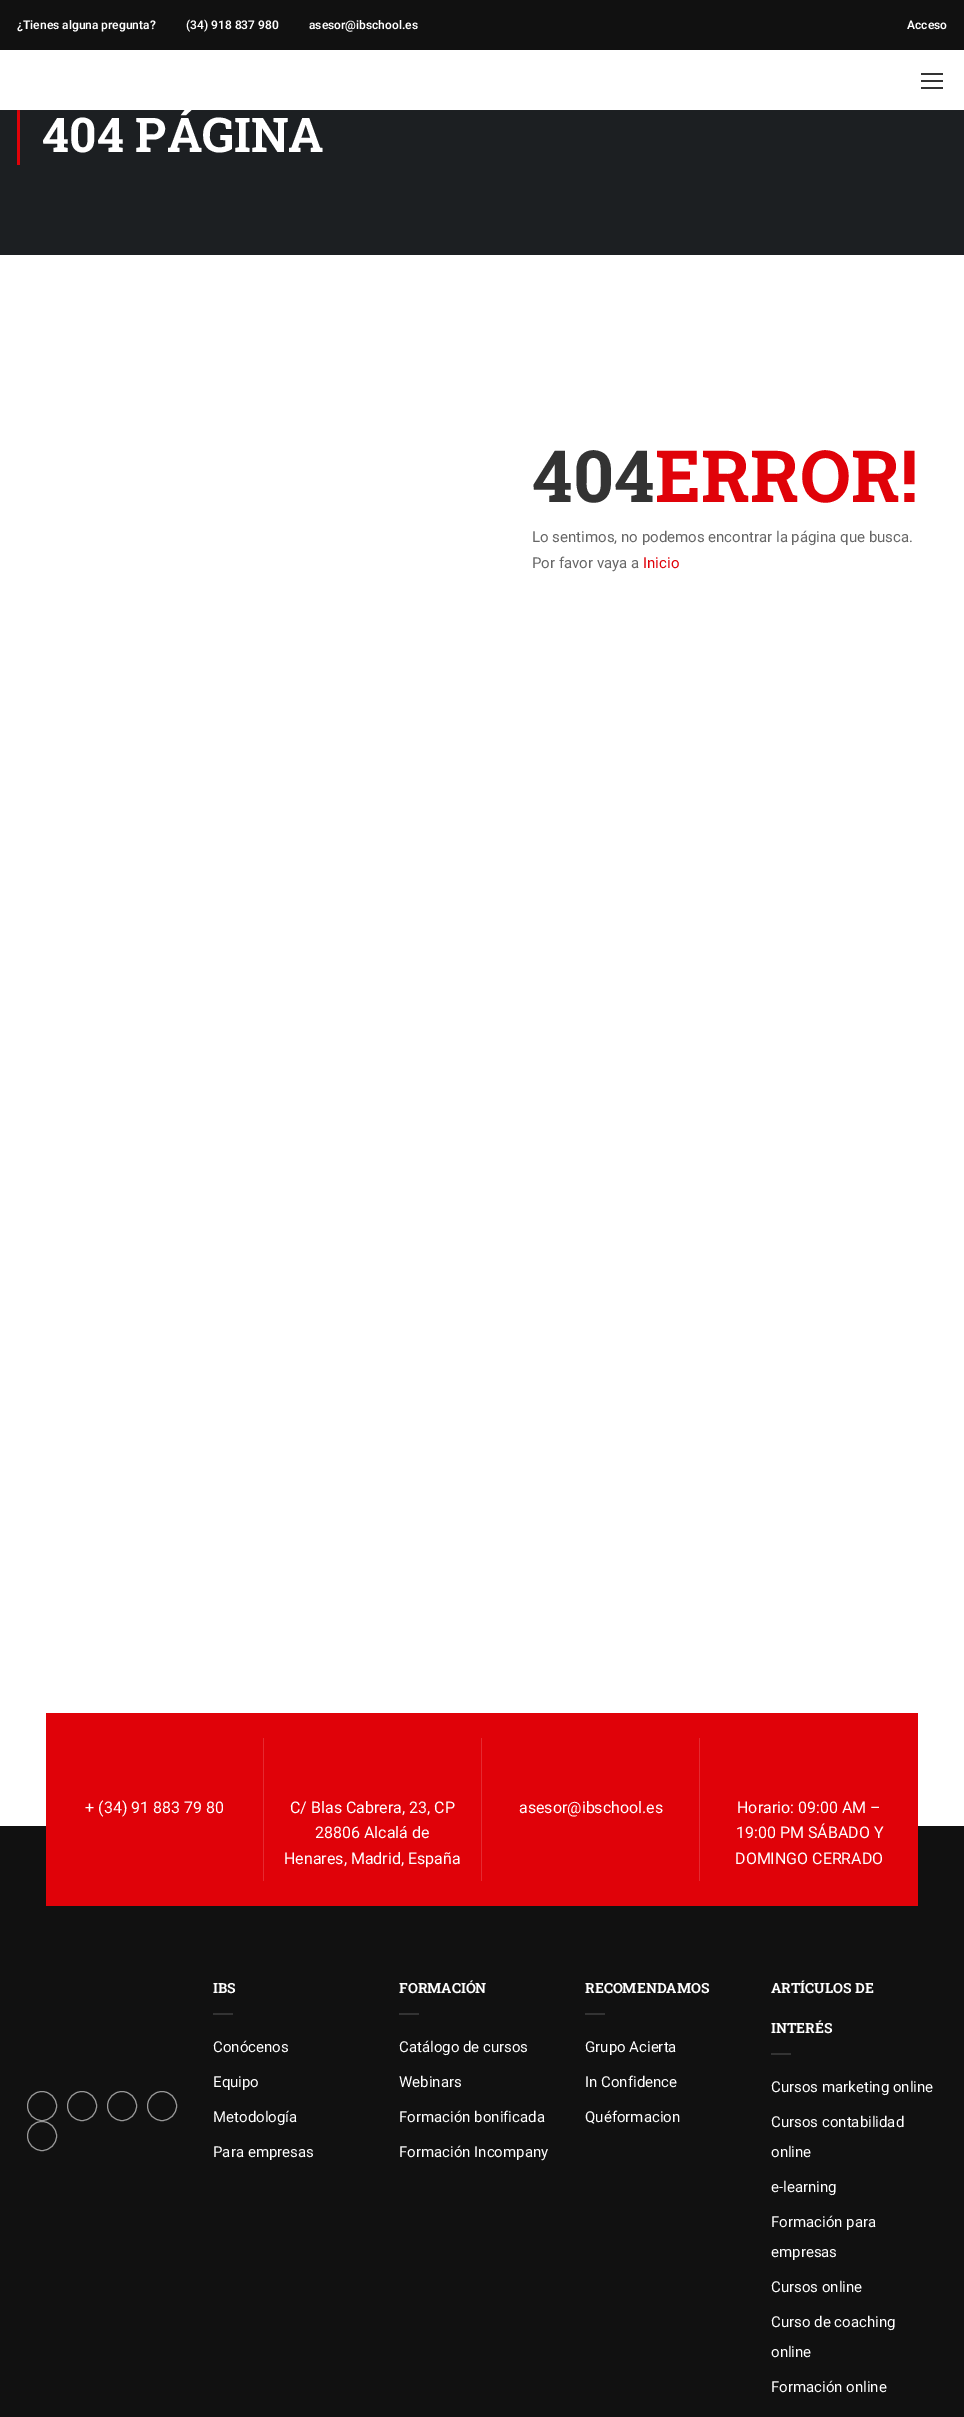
%!PS
<< /PageSize [964 2417] /PageUsesTransparency true >> setpagedevice
/st/stroke load def
/co { dup -16 bitshift 255 div exch dup -8 bitshift 255 and 255 div exch 255 and 255 div setrgbcolor } def
/fn { [ exch dup neg 0 0 3 -1 roll 0 0 ] selectfont } def
/tx { co fn moveto show } def
/bx { co rectfill } def
/al { dup .setfillconstantalpha .setstrokeconstantalpha } def
/ci { newpath 0 360 arc closepath } def
/rr { 5 dict begin { /r /h /w /y /x } { exch def } forall
  x r add y moveto x w add y 2 copy h add r arct x w add y h add x 1 index r arct
  x y h add x y r arct x y 2 copy exch w add exch r arct closepath end } def
/sh { 12 dict begin { /a /b /q /h /w /y /x } { exch def } forall gsave /was 0 def
  9 -2 -9 { dup b mul 4 div /e exch def 1 sub .425 mul 2.718 exch exp 1 add a .99 .min exch div /now exch def
    1 1 now sub 1 was sub div sub al /was now def
    w h .min e 2 mul add 0 gt { x e sub y e sub w e 2 mul add h e 2 mul add
      q e add b .6 mul add w h .min 2 div e add .min 0 .max rr fill } if } for grestore end } def
0 .pushpdf14devicefilter
0 2417 translate 1 -1 scale
4 setmiterlimit
0 0 964 2417 16#FFFFFF bx
0 110 964 145 16#1C1F22 bx
17 103 3 62 16#E00209 bx
16#2A2A2A co
2 3 960 106 0 2.5 .4 sh
0 50 964 60 16#FFFFFF bx
0 0 964 50 16#111111 bx
921 73 22 2 16#333333 bx
921 80 22 2 16#333333 bx
921 87 22 2 16#333333 bx
0 1826 964 591 16#111111 bx
46 1713 872 193 16#E00209 bx
263 1738 1 143 16#E52A30 bx
481 1738 1 143 16#E52A30 bx
699 1738 1 143 16#E52A30 bx
16#999999 co
42 2106 14.5 ci st
82 2106 14.5 ci st
122 2106 14.5 ci st
162 2106 14.5 ci st
42 2136 14.5 ci st
213 2013 20 2 16#333333 bx
399 2013 20 2 16#333333 bx
585 2013 20 2 16#333333 bx
771 2053 20 2 16#333333 bx
(¿Tienes alguna pregunta?) 17 29 /Roboto-SemiBold 12 16#FFFFFF tx
(\(34\) 918 837 980) 186 29 /Roboto-SemiBold 12 16#FFFFFF tx
(asesor@ibschool.es) 309 29 /Roboto-SemiBold 12 16#FFFFFF tx
(Acceso) 907 29 /Roboto-SemiBold 12 16#FFFFFF tx
(404 PÁGINA) 42 152 /RobotoSlab-Bold 48 16#FFFFFF tx
(404) 532 502 /RobotoSlab-Bold 72 16#333333 tx
(ERROR!) 655 502 /RobotoSlab-Bold 72 16#E00209 tx
(Lo sentimos, no podemos encontrar la página que busca.) 532 542 /Roboto-Regular 15 16#666666 tx
(Por favor vaya a) 532 568 /Roboto-Regular 15 16#666666 tx
(Inicio) 643 568 /Roboto-Regular 15 16#E00209 tx
(+ \(34\) 91 883 79 80) 85 1813 /Roboto-Regular 16 16#FFFFFF tx
(C/ Blas Cabrera, 23, CP) 290 1813 /Roboto-Regular 16 16#FFFFFF tx
(28806 Alcalá de) 315 1838 /Roboto-Regular 16 16#FFFFFF tx
(Henares, Madrid, España) 284 1864 /Roboto-Regular 16 16#FFFFFF tx
(asesor@ibschool.es) 519 1813 /Roboto-Regular 16 16#FFFFFF tx
(Horario: 09:00 AM –) 737 1813 /Roboto-Regular 16 16#FFFFFF tx
(19:00 PM SÁBADO Y) 736 1838 /Roboto-Regular 16 16#FFFFFF tx
(DOMINGO CERRADO) 735 1864 /Roboto-Regular 16 16#FFFFFF tx
(IBS) 213 1993 /RobotoSlab-Bold 14 16#FFFFFF tx
(Conócenos) 213 2052 /Roboto-Regular 15 16#FFFFFF tx
(Equipo) 213 2087 /Roboto-Regular 15 16#FFFFFF tx
(Metodología) 213 2122 /Roboto-Regular 15 16#FFFFFF tx
(Para empresas) 213 2157 /Roboto-Regular 15 16#FFFFFF tx
(FORMACIÓN) 399 1993 /RobotoSlab-Bold 14 16#FFFFFF tx
(Catálogo de cursos) 399 2052 /Roboto-Regular 15 16#FFFFFF tx
(Webinars) 399 2087 /Roboto-Regular 15 16#FFFFFF tx
(Formación bonificada) 399 2122 /Roboto-Regular 15 16#FFFFFF tx
(Formación Incompany) 399 2157 /Roboto-Regular 15 16#FFFFFF tx
(RECOMENDAMOS) 585 1993 /RobotoSlab-Bold 14 16#FFFFFF tx
(Grupo Acierta) 585 2052 /Roboto-Regular 15 16#FFFFFF tx
(In Confidence) 585 2087 /Roboto-Regular 15 16#FFFFFF tx
(Quéformacion) 585 2122 /Roboto-Regular 15 16#FFFFFF tx
(ARTÍCULOS DE) 771 1993 /RobotoSlab-Bold 14 16#FFFFFF tx
(INTERÉS) 771 2033 /RobotoSlab-Bold 14 16#FFFFFF tx
(Cursos marketing online) 771 2092 /Roboto-Regular 15 16#FFFFFF tx
(Cursos contabilidad) 771 2127 /Roboto-Regular 15 16#FFFFFF tx
(online) 771 2157 /Roboto-Regular 15 16#FFFFFF tx
(e-learning) 771 2192 /Roboto-Regular 15 16#FFFFFF tx
(Formación para) 771 2227 /Roboto-Regular 15 16#FFFFFF tx
(empresas) 771 2257 /Roboto-Regular 15 16#FFFFFF tx
(Cursos online) 771 2292 /Roboto-Regular 15 16#FFFFFF tx
(Curso de coaching) 771 2327 /Roboto-Regular 15 16#FFFFFF tx
(online) 771 2357 /Roboto-Regular 15 16#FFFFFF tx
(Formación online) 771 2392 /Roboto-Regular 15 16#FFFFFF tx
.poppdf14devicefilter showpage
